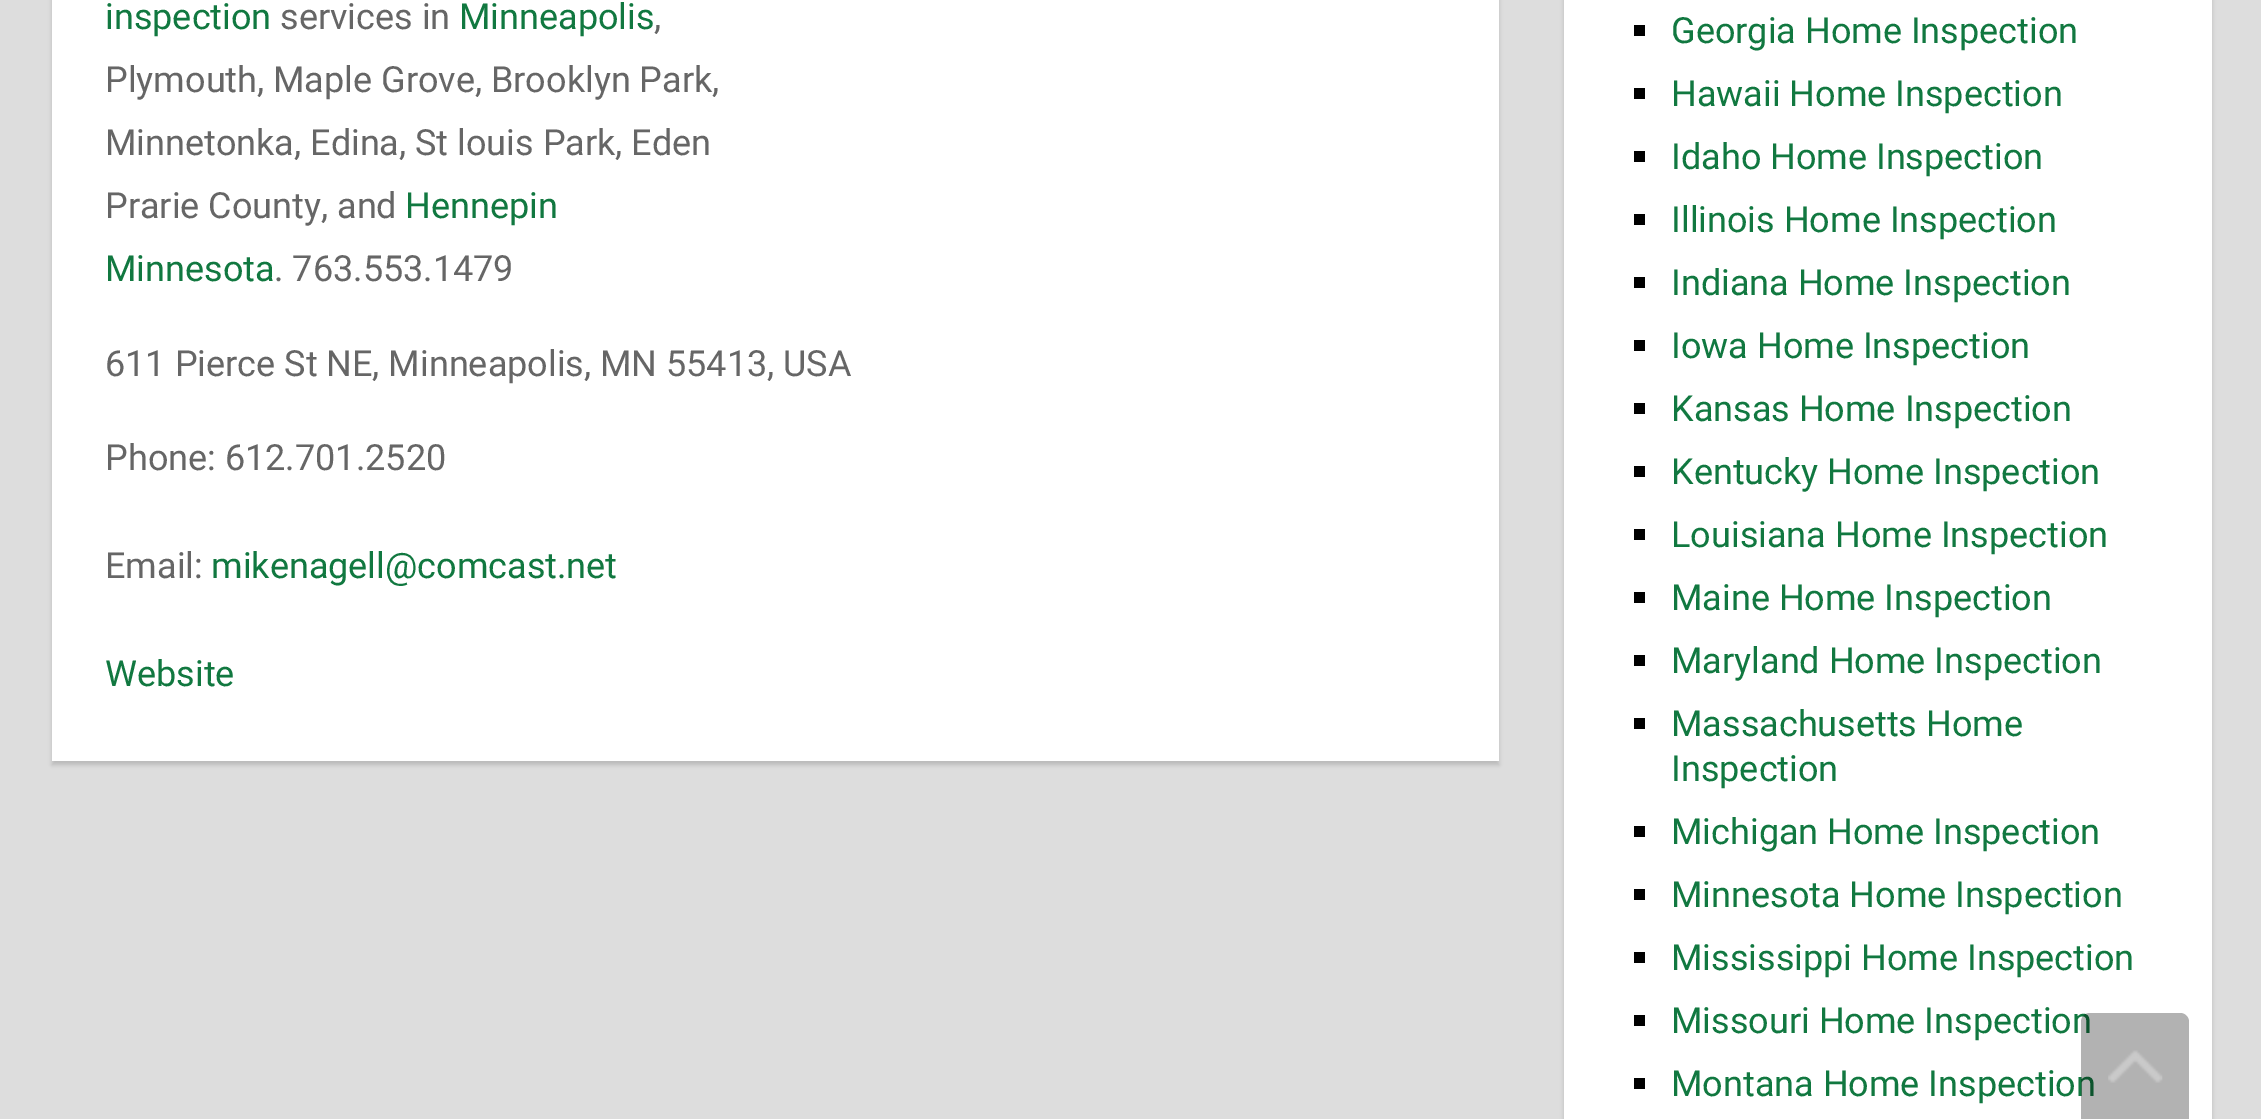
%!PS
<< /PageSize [2261 1119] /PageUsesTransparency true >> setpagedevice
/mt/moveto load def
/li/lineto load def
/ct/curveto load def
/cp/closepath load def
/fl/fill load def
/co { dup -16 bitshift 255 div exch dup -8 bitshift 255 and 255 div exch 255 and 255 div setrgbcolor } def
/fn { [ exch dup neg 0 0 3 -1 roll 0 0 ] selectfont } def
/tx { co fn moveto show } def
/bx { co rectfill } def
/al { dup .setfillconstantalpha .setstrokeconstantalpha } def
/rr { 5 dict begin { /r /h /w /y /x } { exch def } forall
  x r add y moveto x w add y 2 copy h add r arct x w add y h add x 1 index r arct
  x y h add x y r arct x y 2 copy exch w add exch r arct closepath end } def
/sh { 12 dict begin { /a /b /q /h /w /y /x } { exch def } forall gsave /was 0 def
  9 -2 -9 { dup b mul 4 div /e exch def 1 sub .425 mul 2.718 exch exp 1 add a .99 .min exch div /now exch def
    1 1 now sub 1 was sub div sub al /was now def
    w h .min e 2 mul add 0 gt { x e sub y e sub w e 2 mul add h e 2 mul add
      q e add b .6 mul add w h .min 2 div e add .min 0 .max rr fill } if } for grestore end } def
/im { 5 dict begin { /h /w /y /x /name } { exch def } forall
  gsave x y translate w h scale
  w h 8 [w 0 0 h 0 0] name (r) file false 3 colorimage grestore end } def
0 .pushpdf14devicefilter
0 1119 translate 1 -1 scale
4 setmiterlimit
0 0 2261 1119 16#DDDDDD bx
16#000000 co
52 -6 1447 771 0 2 .15 sh
52 0 1447 761 16#FFFFFF bx
16#000000 co
1564 -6 648 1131 0 2 .15 sh
1564 0 648 1119 16#FFFFFF bx
1634 25 11 11 16#000000 bx
1634 88 11 11 16#000000 bx
1634 151 11 11 16#000000 bx
1634 214 11 11 16#000000 bx
1634 277 11 11 16#000000 bx
1634 340 11 11 16#000000 bx
1634 403 11 11 16#000000 bx
1634 466 11 11 16#000000 bx
1634 529 11 11 16#000000 bx
1634 592 11 11 16#000000 bx
1634 655 11 11 16#000000 bx
1634 718 11 11 16#000000 bx
1634 826 11 11 16#000000 bx
1634 889 11 11 16#000000 bx
1634 952 11 11 16#000000 bx
1634 1015 11 11 16#000000 bx
1634 1078 11 11 16#000000 bx
(inspection) 105 29 /Roboto-Regular 36 16#117840 tx
(services in) 280 29 /Roboto-Regular 36 16#666666 tx
(Minneapolis) 459 29 /Roboto-Regular 36 16#117840 tx
(,) 654 29 /Roboto-Regular 36 16#666666 tx
(Plymouth, Maple Grove, Brooklyn Park,) 105 92 /Roboto-Regular 36 16#666666 tx
(Minnetonka, Edina, St louis Park, Eden) 105 155 /Roboto-Regular 36 16#666666 tx
(Prarie County, and) 105 218 /Roboto-Regular 36 16#666666 tx
(Hennepin) 405 218 /Roboto-Regular 36 16#117840 tx
(Minnesota) 105 281 /Roboto-Regular 36 16#117840 tx
(. 763.553.1479) 274 281 /Roboto-Regular 36 16#666666 tx
(611 Pierce St NE, Minneapolis, MN 55413, USA) 105 376 /Roboto-Regular 36 16#666666 tx
(Phone: 612.701.2520) 105 470 /Roboto-Regular 36 16#666666 tx
(Email:) 105 578 /Roboto-Regular 36 16#666666 tx
(mikenagell@comcast.net) 211 578 /Roboto-Regular 36 16#117840 tx
(Website) 105 686 /Roboto-Regular 36 16#117840 tx
(Georgia Home Inspection) 1671 43 /Roboto-Regular 36 16#117840 tx
(Hawaii Home Inspection) 1671 106 /Roboto-Regular 36 16#117840 tx
(Idaho Home Inspection) 1671 169 /Roboto-Regular 36 16#117840 tx
(Illinois Home Inspection) 1671 232 /Roboto-Regular 36 16#117840 tx
(Indiana Home Inspection) 1671 295 /Roboto-Regular 36 16#117840 tx
(Iowa Home Inspection) 1671 358 /Roboto-Regular 36 16#117840 tx
(Kansas Home Inspection) 1671 421 /Roboto-Regular 36 16#117840 tx
(Kentucky Home Inspection) 1671 484 /Roboto-Regular 36 16#117840 tx
(Louisiana Home Inspection) 1671 547 /Roboto-Regular 36 16#117840 tx
(Maine Home Inspection) 1671 610 /Roboto-Regular 36 16#117840 tx
(Maryland Home Inspection) 1671 673 /Roboto-Regular 36 16#117840 tx
(Massachusetts Home) 1671 736 /Roboto-Regular 36 16#117840 tx
(Inspection) 1671 781 /Roboto-Regular 36 16#117840 tx
(Michigan Home Inspection) 1671 844 /Roboto-Regular 36 16#117840 tx
(Minnesota Home Inspection) 1671 907 /Roboto-Regular 36 16#117840 tx
(Mississippi Home Inspection) 1671 970 /Roboto-Regular 36 16#117840 tx
(Missouri Home Inspection) 1671 1033 /Roboto-Regular 36 16#117840 tx
(Montana Home Inspection) 1671 1096 /Roboto-Regular 36 16#117840 tx
0.3 al
16#000000 co
2090 1013 mt 2180 1013 li 2185 1013 2189 1017 2189 1022 ct 2189 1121 li 2081 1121 li 2081 1022 li 2081 1017 2085 1013 2090 1013 ct cp fl
1 al
(media/1.raw) 2108 1050 55 33 im
.poppdf14devicefilter showpage
